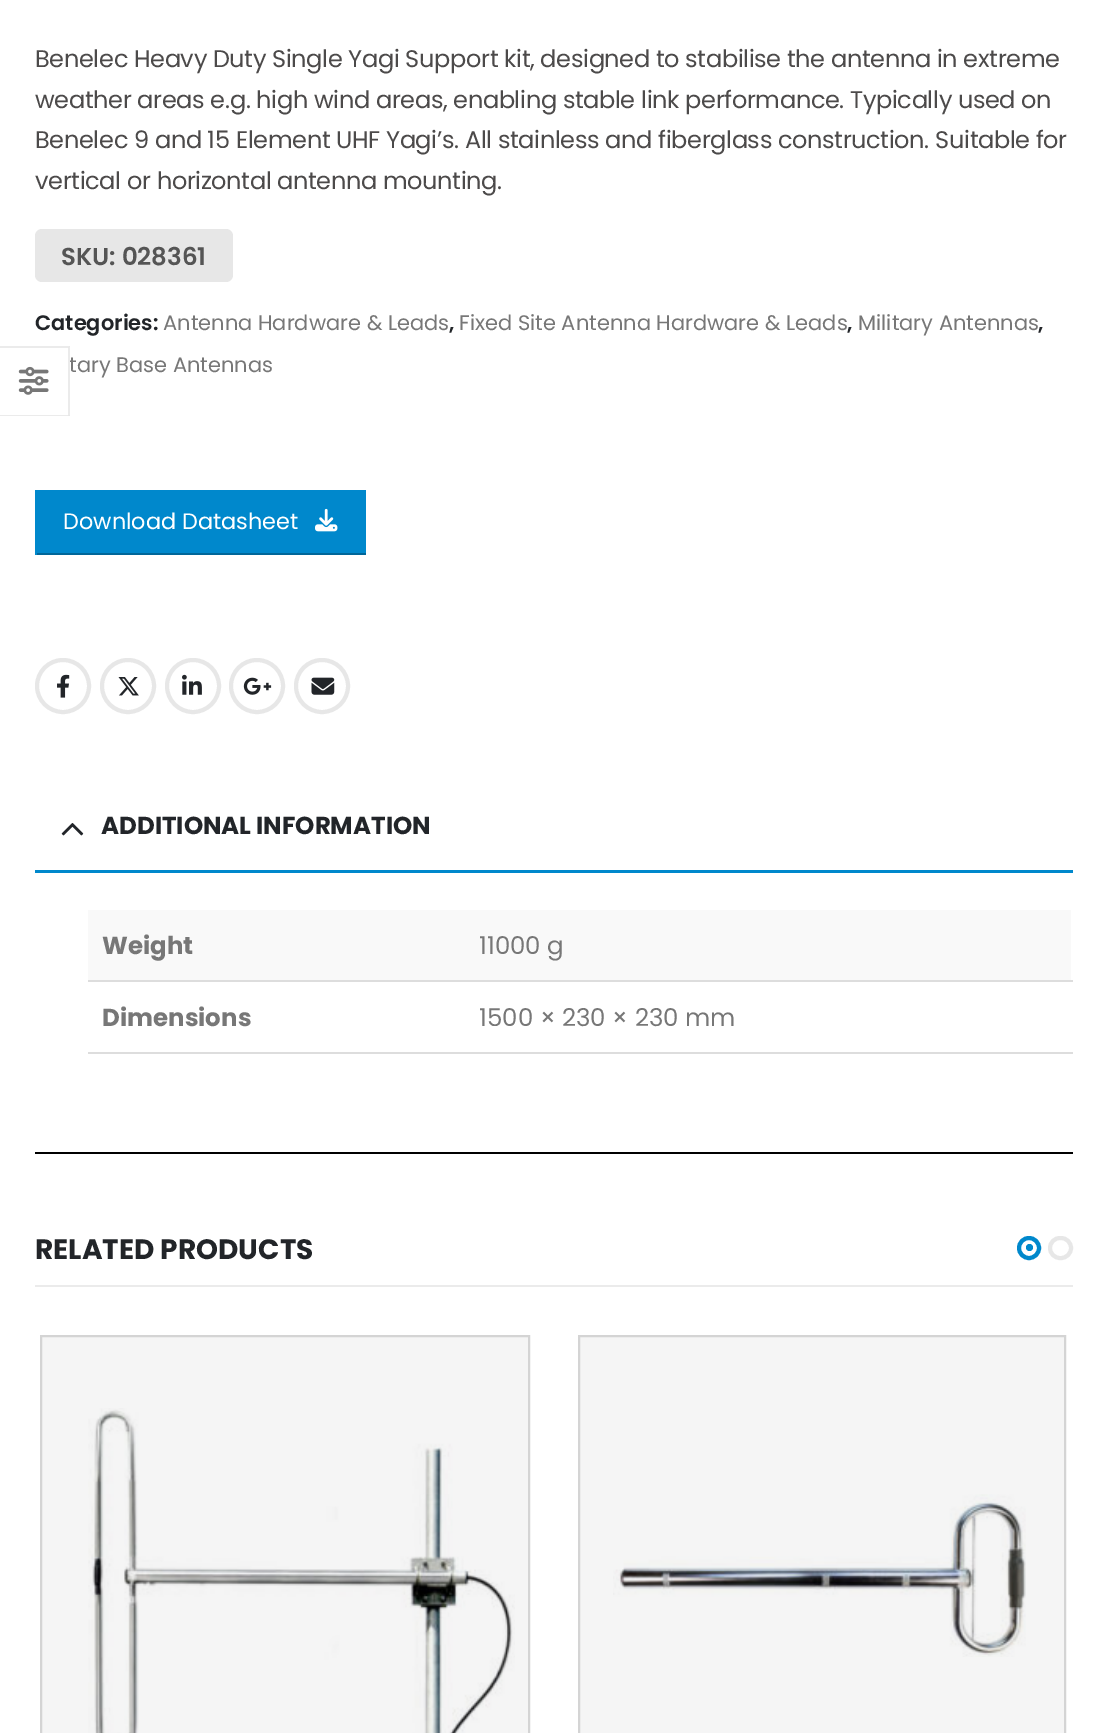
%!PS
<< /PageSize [1107 1733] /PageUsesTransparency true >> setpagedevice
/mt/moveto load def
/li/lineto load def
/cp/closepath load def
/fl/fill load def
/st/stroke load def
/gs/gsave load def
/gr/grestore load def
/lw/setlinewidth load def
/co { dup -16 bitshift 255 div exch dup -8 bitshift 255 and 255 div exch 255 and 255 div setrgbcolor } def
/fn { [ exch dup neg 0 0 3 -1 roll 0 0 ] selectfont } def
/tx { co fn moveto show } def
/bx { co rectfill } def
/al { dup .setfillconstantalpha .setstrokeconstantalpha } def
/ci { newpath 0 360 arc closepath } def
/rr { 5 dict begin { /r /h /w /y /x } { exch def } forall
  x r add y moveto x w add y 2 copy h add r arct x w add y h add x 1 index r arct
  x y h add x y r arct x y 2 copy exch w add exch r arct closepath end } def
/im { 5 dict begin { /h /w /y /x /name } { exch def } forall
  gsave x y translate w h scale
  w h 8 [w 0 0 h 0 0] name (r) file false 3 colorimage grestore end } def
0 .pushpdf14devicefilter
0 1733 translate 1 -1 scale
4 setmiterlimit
0 0 1107 1733 16#FFFFFF bx
16#E7E7E7 co
35 229 198 53 7 rr fl
37 490 329 63 16#0088CC bx
35 553 331 2 16#006699 bx
35 490 2 65 16#0088CC bx
(media/1.raw) 315 508 23 24 im
16#E7E7E7 co
4 lw
63 686 26 ci st
(media/2.raw) 57 674 13 24 im
128 686 26 ci st
(media/3.raw) 118 677 21 19 im
193 686 26 ci st
(media/4.raw) 182 674 20 21 im
257 686 26 ci st
(media/5.raw) 243 677 29 18 im
322 686 26 ci st
(media/6.raw) 311 677 24 18 im
35 870 1038 3 16#0088CC bx
(media/7.raw) 61 823 23 13 im
88 910 983 70 16#F9F9F9 bx
88 980 985 2 16#DDDDDD bx
88 1052 985 2 16#DDDDDD bx
35 1152 1038 2 16#000000 bx
16#0088CC co
1029 1248 10 ci st
1029.5 1247.5 3.5 ci fl
16#E7E7E7 co
1050 1238 21 20 10 rr st
16#F5F5F5 co
41 1336 mt 529 1336 li 529 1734 li 41 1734 li cp gs fl gr
16#D4D4D4 co
2 lw
st
(media/8.raw) 88 1408 427 325 im
16#F5F5F5 co
579 1336 mt 1065 1336 li 1065 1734 li 579 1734 li cp gs fl gr
16#D4D4D4 co
st
(media/9.raw) 613 1494 413 163 im
35 1285 1038 2 16#EBEBEB bx
0 346 mt 70 346 li 68 348 li 0 348 li cp fl
(media/10.raw) 18 366 31 29 im
/Poppins-Regular 24 fn
16#4C4A4A co
35 67 mt -.35 0 (Benelec Heavy Duty Single Yagi Support kit, designed to stabilise the antenna in extreme) ashow
35 108 mt -.35 0 (weather areas e.g. high wind areas, enabling stable link performance. Typically used on) ashow
35 148 mt -.35 0 (Benelec 9 and 15 Element UHF Yagi’s. All stainless and fiberglass construction. Suitable for) ashow
35 189 mt -.35 0 (vertical or horizontal antenna mounting.) ashow
(SKU: 028361) 61 265 /Poppins-SemiBold 24.5 16#555555 tx
(Categories:) 35 330 /Poppins-SemiBold 21 16#222529 tx
(Antenna Hardware & Leads) 163 330 /Poppins-Regular 21 16#777777 tx
(,) 449 330 /Poppins-SemiBold 21 16#222529 tx
(Fixed Site Antenna Hardware & Leads) 459 330 /Poppins-Regular 21 16#777777 tx
(,) 847 330 /Poppins-SemiBold 21 16#222529 tx
(Military Antennas) 858 330 /Poppins-Regular 21 16#777777 tx
(,) 1038 330 /Poppins-SemiBold 21 16#222529 tx
(tary Base Antennas) 69 372 /Poppins-Regular 21 16#777777 tx
(Download Datasheet) 63 529 /Poppins-Regular 22.4 16#FFFFFF tx
(ADDITIONAL INFORMATION) 101 834 /Poppins-Bold 24.5 16#222529 tx
(Weight) 102 954 /Poppins-Bold 24.5 16#777777 tx
(11000 g) 479 954 /Poppins-Regular 24.5 16#777777 tx
(Dimensions) 102 1026 /Poppins-Bold 24.5 16#777777 tx
(1500 × 230 × 230 mm) 479 1026 /Poppins-Regular 24.5 16#777777 tx
(RELATED PRODUCTS) 35 1259 /Poppins-Bold 28 16#222529 tx
69 360 1 3 16#FFFFFF bx
0.08 al
16#000000 co
70 346 mt 70 416 li 68 415 li 68 348 li cp fl
70 416 mt 0 416 li 0 415 li 68 415 li cp fl
.poppdf14devicefilter showpage
